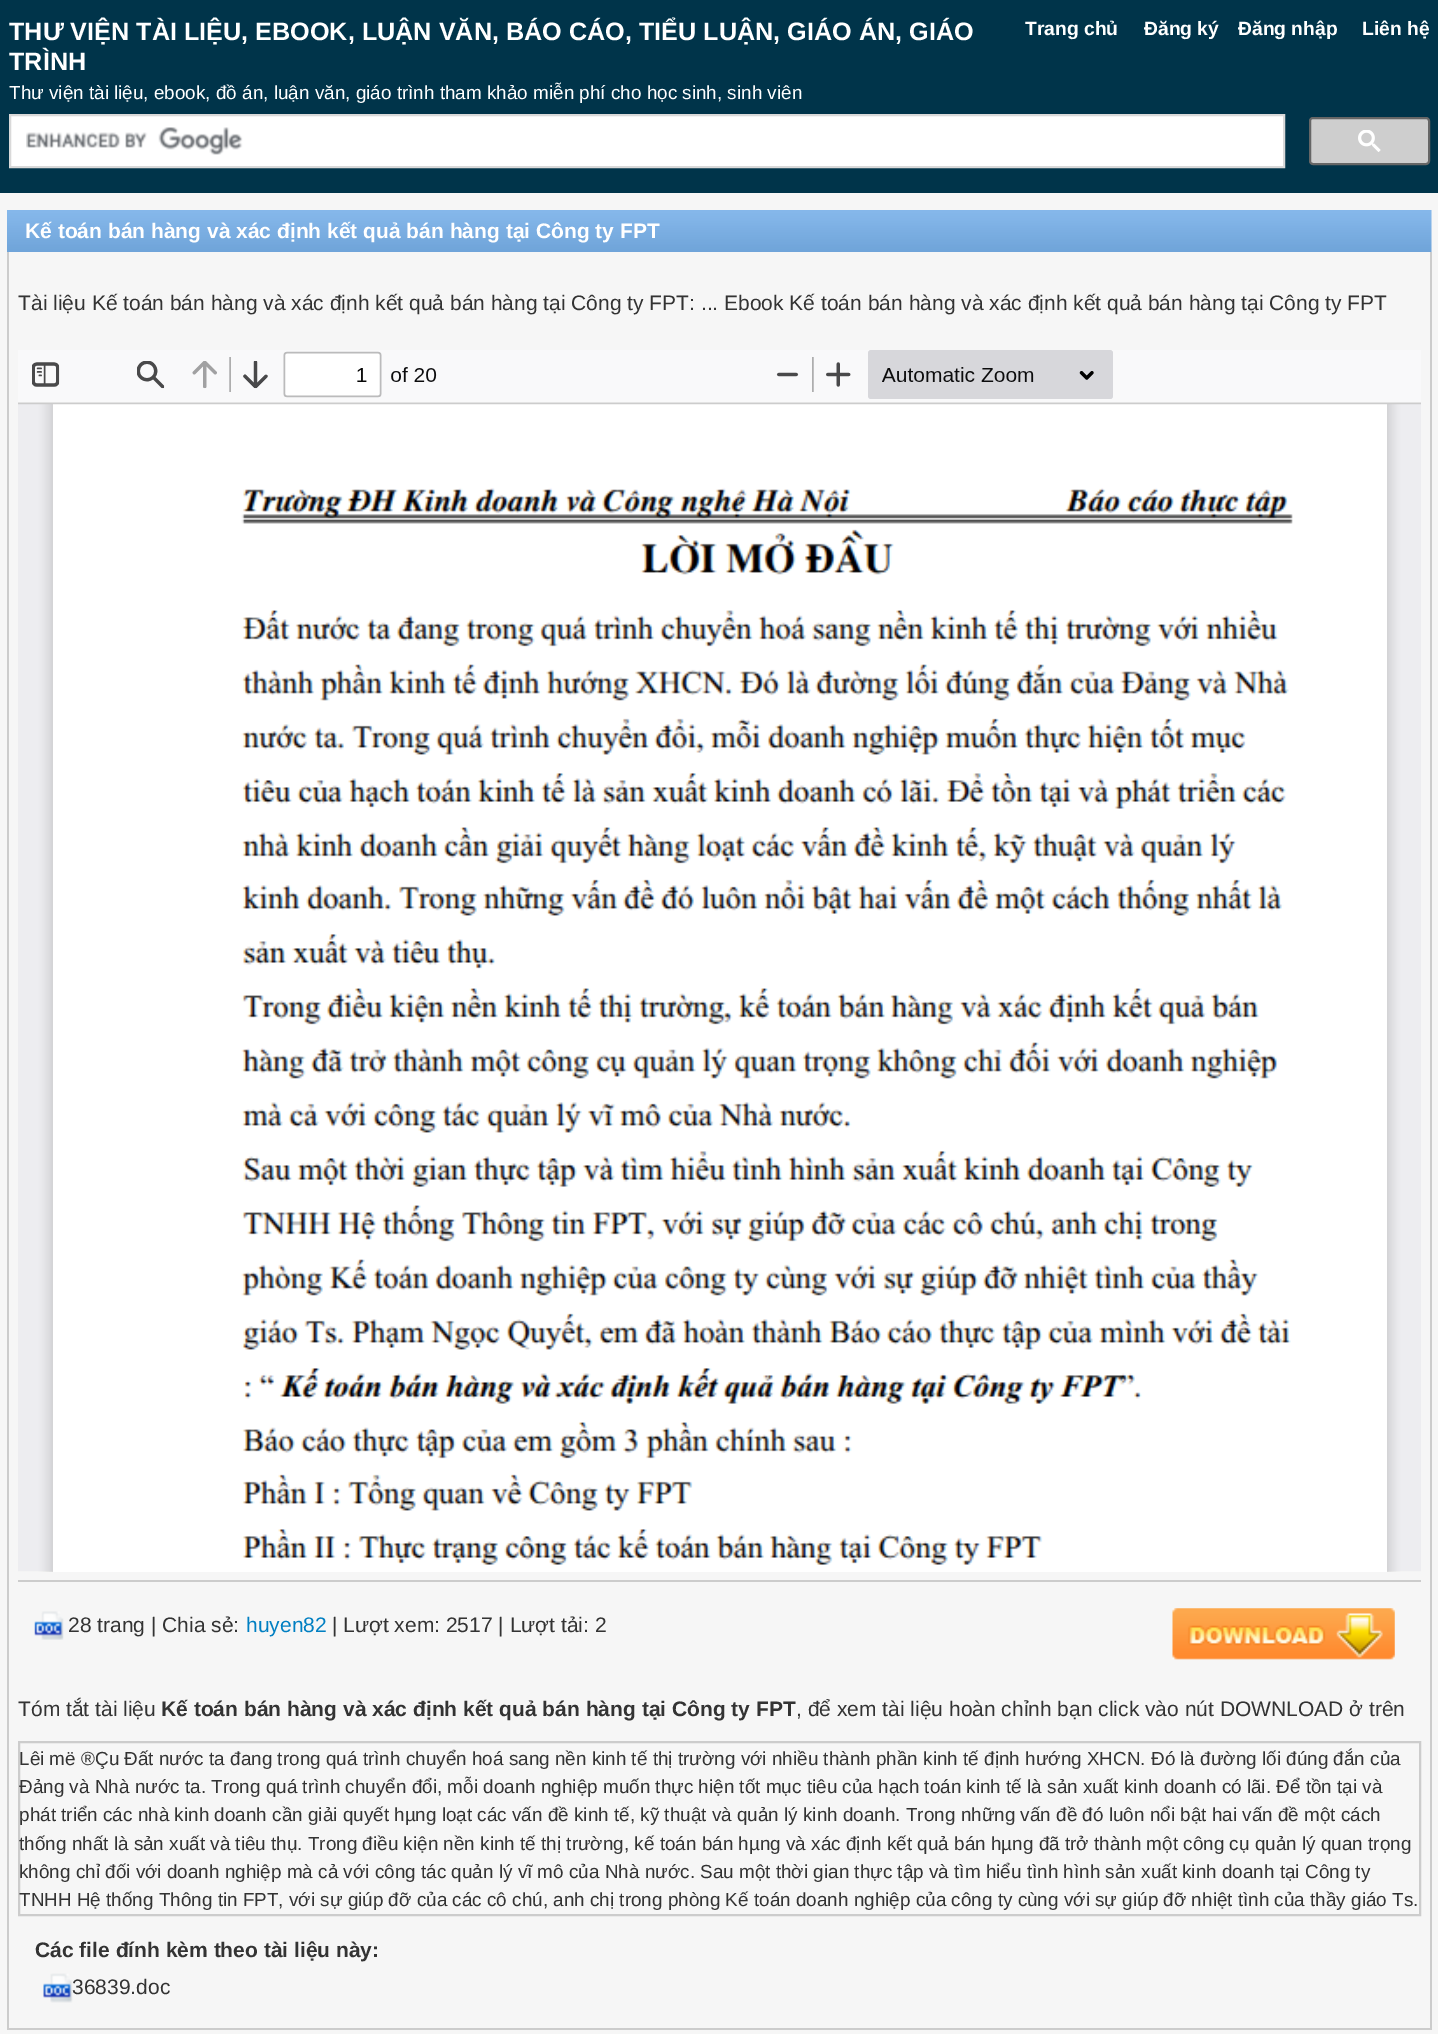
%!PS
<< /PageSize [1438 2034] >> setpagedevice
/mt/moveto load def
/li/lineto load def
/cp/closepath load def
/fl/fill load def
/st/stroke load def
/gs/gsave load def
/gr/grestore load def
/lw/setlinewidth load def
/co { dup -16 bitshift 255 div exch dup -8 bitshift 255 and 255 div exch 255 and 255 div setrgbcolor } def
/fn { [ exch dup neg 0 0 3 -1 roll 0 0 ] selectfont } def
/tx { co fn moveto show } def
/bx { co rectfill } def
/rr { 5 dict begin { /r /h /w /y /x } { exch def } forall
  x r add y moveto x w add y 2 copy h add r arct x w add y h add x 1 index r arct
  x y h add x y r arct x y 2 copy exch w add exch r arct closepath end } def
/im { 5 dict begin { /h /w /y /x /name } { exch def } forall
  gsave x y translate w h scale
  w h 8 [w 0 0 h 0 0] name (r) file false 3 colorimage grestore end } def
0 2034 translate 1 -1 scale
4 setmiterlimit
0 0 1438 2034 16#F6F6F6 bx
0 0 1438 193 16#00344A bx
16#FFFFFF co
10 115 mt 1284 115 li 1284 167 li 10 167 li cp gs fl gr
16#D9D9D9 co
2 lw
st
(media/1.raw) 26 127 217 28 im
16#CECECE co
1310 118 119 46 3 rr gs fl gr
16#666666 co
st
(media/2.raw) 1358 130 23 22 im
(media/3.raw) 7 210 1425 42 im
1430 252 2 1778 16#CCCCCC bx
7 2028 1425 2 16#CCCCCC bx
7 252 2 1778 16#CCCCCC bx
18 1580 1403 2 16#CCCCCC bx
(media/4.raw) 18 350 1403 1222 im
(media/5.raw) 34 1611 30 29 im
(media/6.raw) 1172 1608 223 52 im
19 1742 1401 173 rectstroke
(media/7.raw) 43 1973 30 30 im
(THƯ VIỆN TÀI LIỆU, EBOOK, LUẬN VĂN, BÁO CÁO, TIỂU LUẬN, GIÁO ÁN, GIÁO) 9 40 /LiberationSans-Bold 25.2 16#FFFFFF tx
(TRÌNH) 9 70 /LiberationSans-Bold 25.2 16#FFFFFF tx
(Thư viện tài liệu, ebook, đồ án, luận văn, giáo trình tham khảo miễn phí cho học sinh, sinh viên) 9 99 /LiberationSans-Regular 18.9 16#FFFFFF tx
(Trang chủ) 1025 35 /LiberationSans-Bold 19.25 16#FFFFFF tx
(Đăng ký) 1144 35 /LiberationSans-Bold 19.25 16#FFFFFF tx
(Đăng nhập) 1238 35 /LiberationSans-Bold 19.25 16#FFFFFF tx
(Liên hệ) 1362 35 /LiberationSans-Bold 19.25 16#FFFFFF tx
(Kế toán bán hàng và xác định kết quả bán hàng tại Công ty FPT) 25 238 /LiberationSans-Bold 21 16#FFFFFF tx
(Tài liệu Kế toán bán hàng và xác định kết quả bán hàng tại Công ty FPT: ... Ebook Kế toán bán hàng và xác định kết quả bán hàng tại Công ty FPT) 18 310 /LiberationSans-Regular 21 16#333333 tx
(28 trang | Chia sẻ:) 68 1632 /LiberationSans-Regular 21 16#333333 tx
(huyen82) 246 1632 /LiberationSans-Regular 21 16#007FC2 tx
(| Lượt xem: 2517 | Lượt tải: 2) 332 1632 /LiberationSans-Regular 21 16#333333 tx
(Tóm tắt tài liệu) 18 1716 /LiberationSans-Regular 21 16#333333 tx
(Kế toán bán hàng và xác định kết quả bán hàng tại Công ty FPT) 161 1716 /LiberationSans-Bold 21 16#333333 tx
(, để xem tài liệu hoàn chỉnh bạn click vào nút DOWNLOAD ở trên) 796 1716 /LiberationSans-Regular 21 16#333333 tx
(Lêi më ®Çu Đất nước ta đang trong quá trình chuyển hoá sang nền kinh tế thị trường với nhiều thành phần kinh tế định hướng XHCN. Đó là đường lối đúng đắn của) 19 1765 /LiberationSans-Regular 18.9 16#333333 tx
(Đảng và Nhà nước ta. Trong quá trình chuyển đổi, mỗi doanh nghiệp muốn thực hiện tốt mục tiêu của hạch toán kinh tế là sản xuất kinh doanh có lãi. Để tồn tại và) 19 1793 /LiberationSans-Regular 18.9 16#333333 tx
(phát triển các nhà kinh doanh cần giải quyết hµng loạt các vấn đề kinh tế, kỹ thuật và quản lý kinh doanh. Trong những vấn đề đó luôn nổi bật hai vấn đề một cách) 19 1821 /LiberationSans-Regular 18.9 16#333333 tx
(thống nhất là sản xuất và tiêu thụ. Trong điều kiện nền kinh tế thị trường, kế toán bán hµng và xác định kết quả bán hµng đã trở thành một công cụ quản lý quan trọng) 19 1850 /LiberationSans-Regular 18.9 16#333333 tx
(không chỉ đối với doanh nghiệp mà cả với công tác quản lý vĩ mô của Nhà nước. Sau một thời gian thực tập và tìm hiểu tình hình sản xuất kinh doanh tại Công ty) 19 1878 /LiberationSans-Regular 18.9 16#333333 tx
(TNHH Hệ thống Thông tin FPT, với sự giúp đỡ của các cô chú, anh chị trong phòng Kế toán doanh nghiệp của công ty cùng với sự giúp đỡ nhiệt tình của thầy giáo Ts.) 19 1906 /LiberationSans-Regular 18.9 16#333333 tx
(Các file đính kèm theo tài liệu này:) 35 1957 /LiberationSans-Bold 21 16#333333 tx
(36839.doc) 72 1994 /LiberationSans-Regular 21 16#333333 tx
showpage
